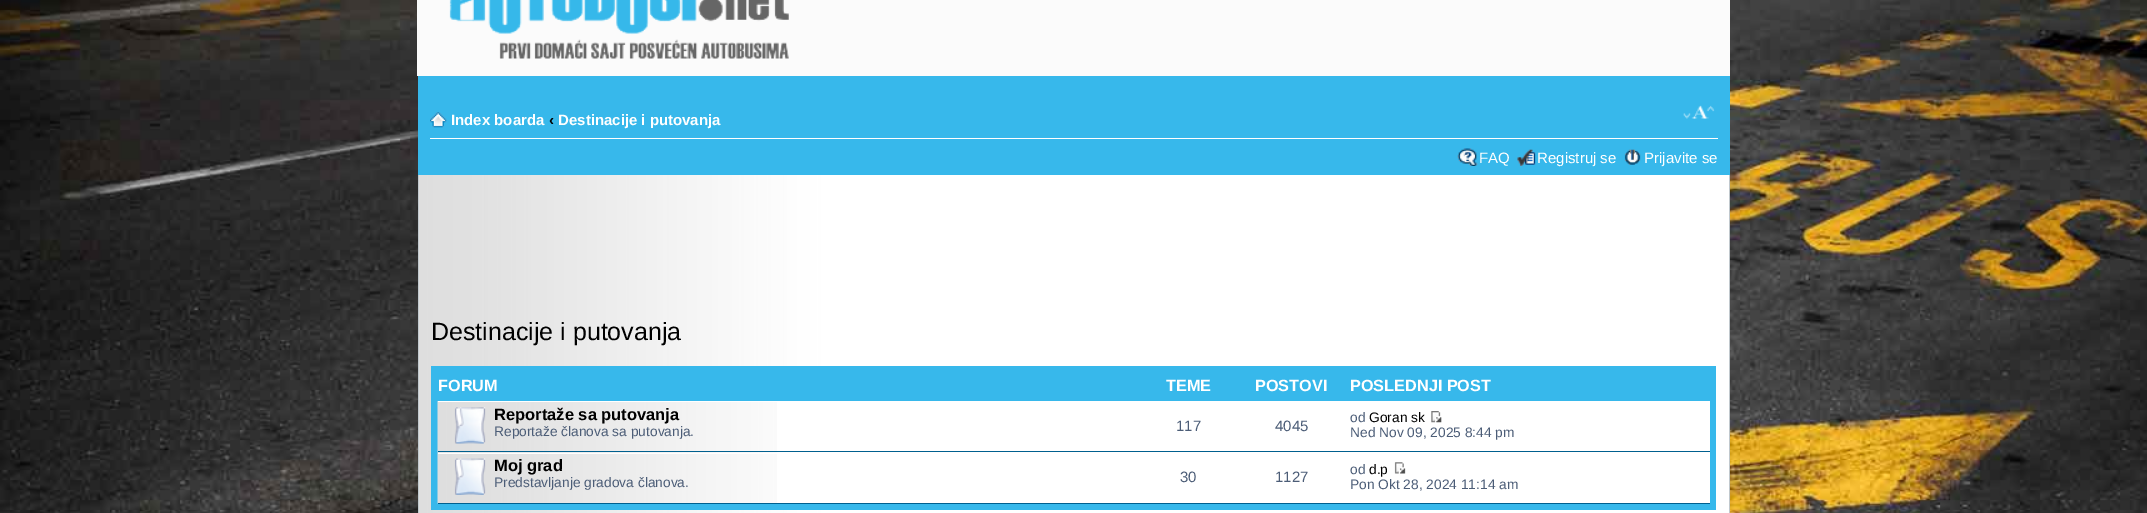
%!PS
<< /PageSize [2147 513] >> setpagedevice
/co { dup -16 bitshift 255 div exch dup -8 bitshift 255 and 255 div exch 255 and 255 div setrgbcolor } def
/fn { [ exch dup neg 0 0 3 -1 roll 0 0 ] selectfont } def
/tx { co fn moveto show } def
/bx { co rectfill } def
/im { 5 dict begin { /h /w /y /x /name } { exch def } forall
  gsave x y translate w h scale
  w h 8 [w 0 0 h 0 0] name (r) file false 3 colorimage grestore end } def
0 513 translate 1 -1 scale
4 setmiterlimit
0 0 2147 513 16#FFFFFF bx
(media/1.raw) 0 0 2147 513 im
418 76 1312 99 16#37B8EB bx
417 0 1313 76 16#FBFBFB bx
(media/2.raw) 449 0 340 59 im
430 138 1288 1 16#FFFFFF bx
(media/3.raw) 1683 105 32 14 im
(media/4.raw) 430 112 17 16 im
(media/5.raw) 1457 148 21 18 im
(media/6.raw) 1517 149 19 17 im
(media/7.raw) 1624 149 17 16 im
1618 175 111 338 16#FFFFFF bx
(media/8.raw) 419 175 1199 338 im
1729 175 1 338 16#C0C8CD bx
418 175 1 338 16#C0C8CD bx
431 366 1285 144 16#37B8EB bx
438 402 1272 51 16#FFFFFF bx
(media/9.raw) 437 401 340 52 im
438 401 1272 1 16#FFFFFF bx
438 451 1272 1 16#00608F bx
(media/10.raw) 454 407 32 37 im
(media/11.raw) 1431 411 11 12 im
777 454 933 49 16#FFFFFF bx
(media/12.raw) 437 452 340 52 im
438 453 1272 1 16#FFFFFF bx
438 503 1272 1 16#00608F bx
(media/13.raw) 454 458 32 37 im
(media/14.raw) 1394 462 12 12 im
(Index boarda) 451 125 /LiberationSans-Bold 15 16#FFFFFF tx
(‹) 549 125 /LiberationSans-Bold 15 16#000000 tx
(Destinacije i putovanja) 558 125 /LiberationSans-Bold 15 16#FFFFFF tx
(FAQ) 1479 163 /LiberationSans-Regular 15 16#FFFFFF tx
(Registruj se) 1537 163 /LiberationSans-Regular 15 16#FFFFFF tx
(Prijavite se) 1644 163 /LiberationSans-Regular 15 16#FFFFFF tx
(Destinacije i putovanja) 431 340 /LiberationSans-Regular 25 16#000000 tx
(FORUM) 438 391 /LiberationSans-Bold 16.25 16#FFFFFF tx
(TEME) 1166 391 /LiberationSans-Bold 16.25 16#FFFFFF tx
(POSTOVI) 1255 391 /LiberationSans-Bold 16.25 16#FFFFFF tx
(POSLEDNJI POST) 1350 391 /LiberationSans-Bold 16.25 16#FFFFFF tx
(Reportaže sa putovanja) 494 420 /LiberationSans-Bold 16.5 16#000000 tx
(Reportaže članova sa putovanja.) 494 436 /LiberationSans-Regular 13.75 16#4C5D77 tx
(117) 1176 431 /LiberationSans-Regular 15 16#4C5D77 tx
(4045) 1275 431 /LiberationSans-Regular 15 16#4C5D77 tx
(od) 1350 422 /LiberationSans-Regular 13.75 16#4C5D77 tx
(Goran sk) 1369 422 /LiberationSans-Regular 13.75 16#000000 tx
(Ned Nov 09, 2025 8:44 pm) 1350 437 /LiberationSans-Regular 13.75 16#4C5D77 tx
(Moj grad) 494 471 /LiberationSans-Bold 16.5 16#000000 tx
(Predstavljanje gradova članova.) 494 487 /LiberationSans-Regular 13.75 16#4C5D77 tx
(30) 1180 482 /LiberationSans-Regular 15 16#4C5D77 tx
(1127) 1275 482 /LiberationSans-Regular 15 16#4C5D77 tx
(od) 1350 474 /LiberationSans-Regular 13.75 16#4C5D77 tx
(d.p) 1369 474 /LiberationSans-Regular 13.75 16#000000 tx
(Pon Okt 28, 2024 11:14 am) 1350 489 /LiberationSans-Regular 13.75 16#4C5D77 tx
showpage
